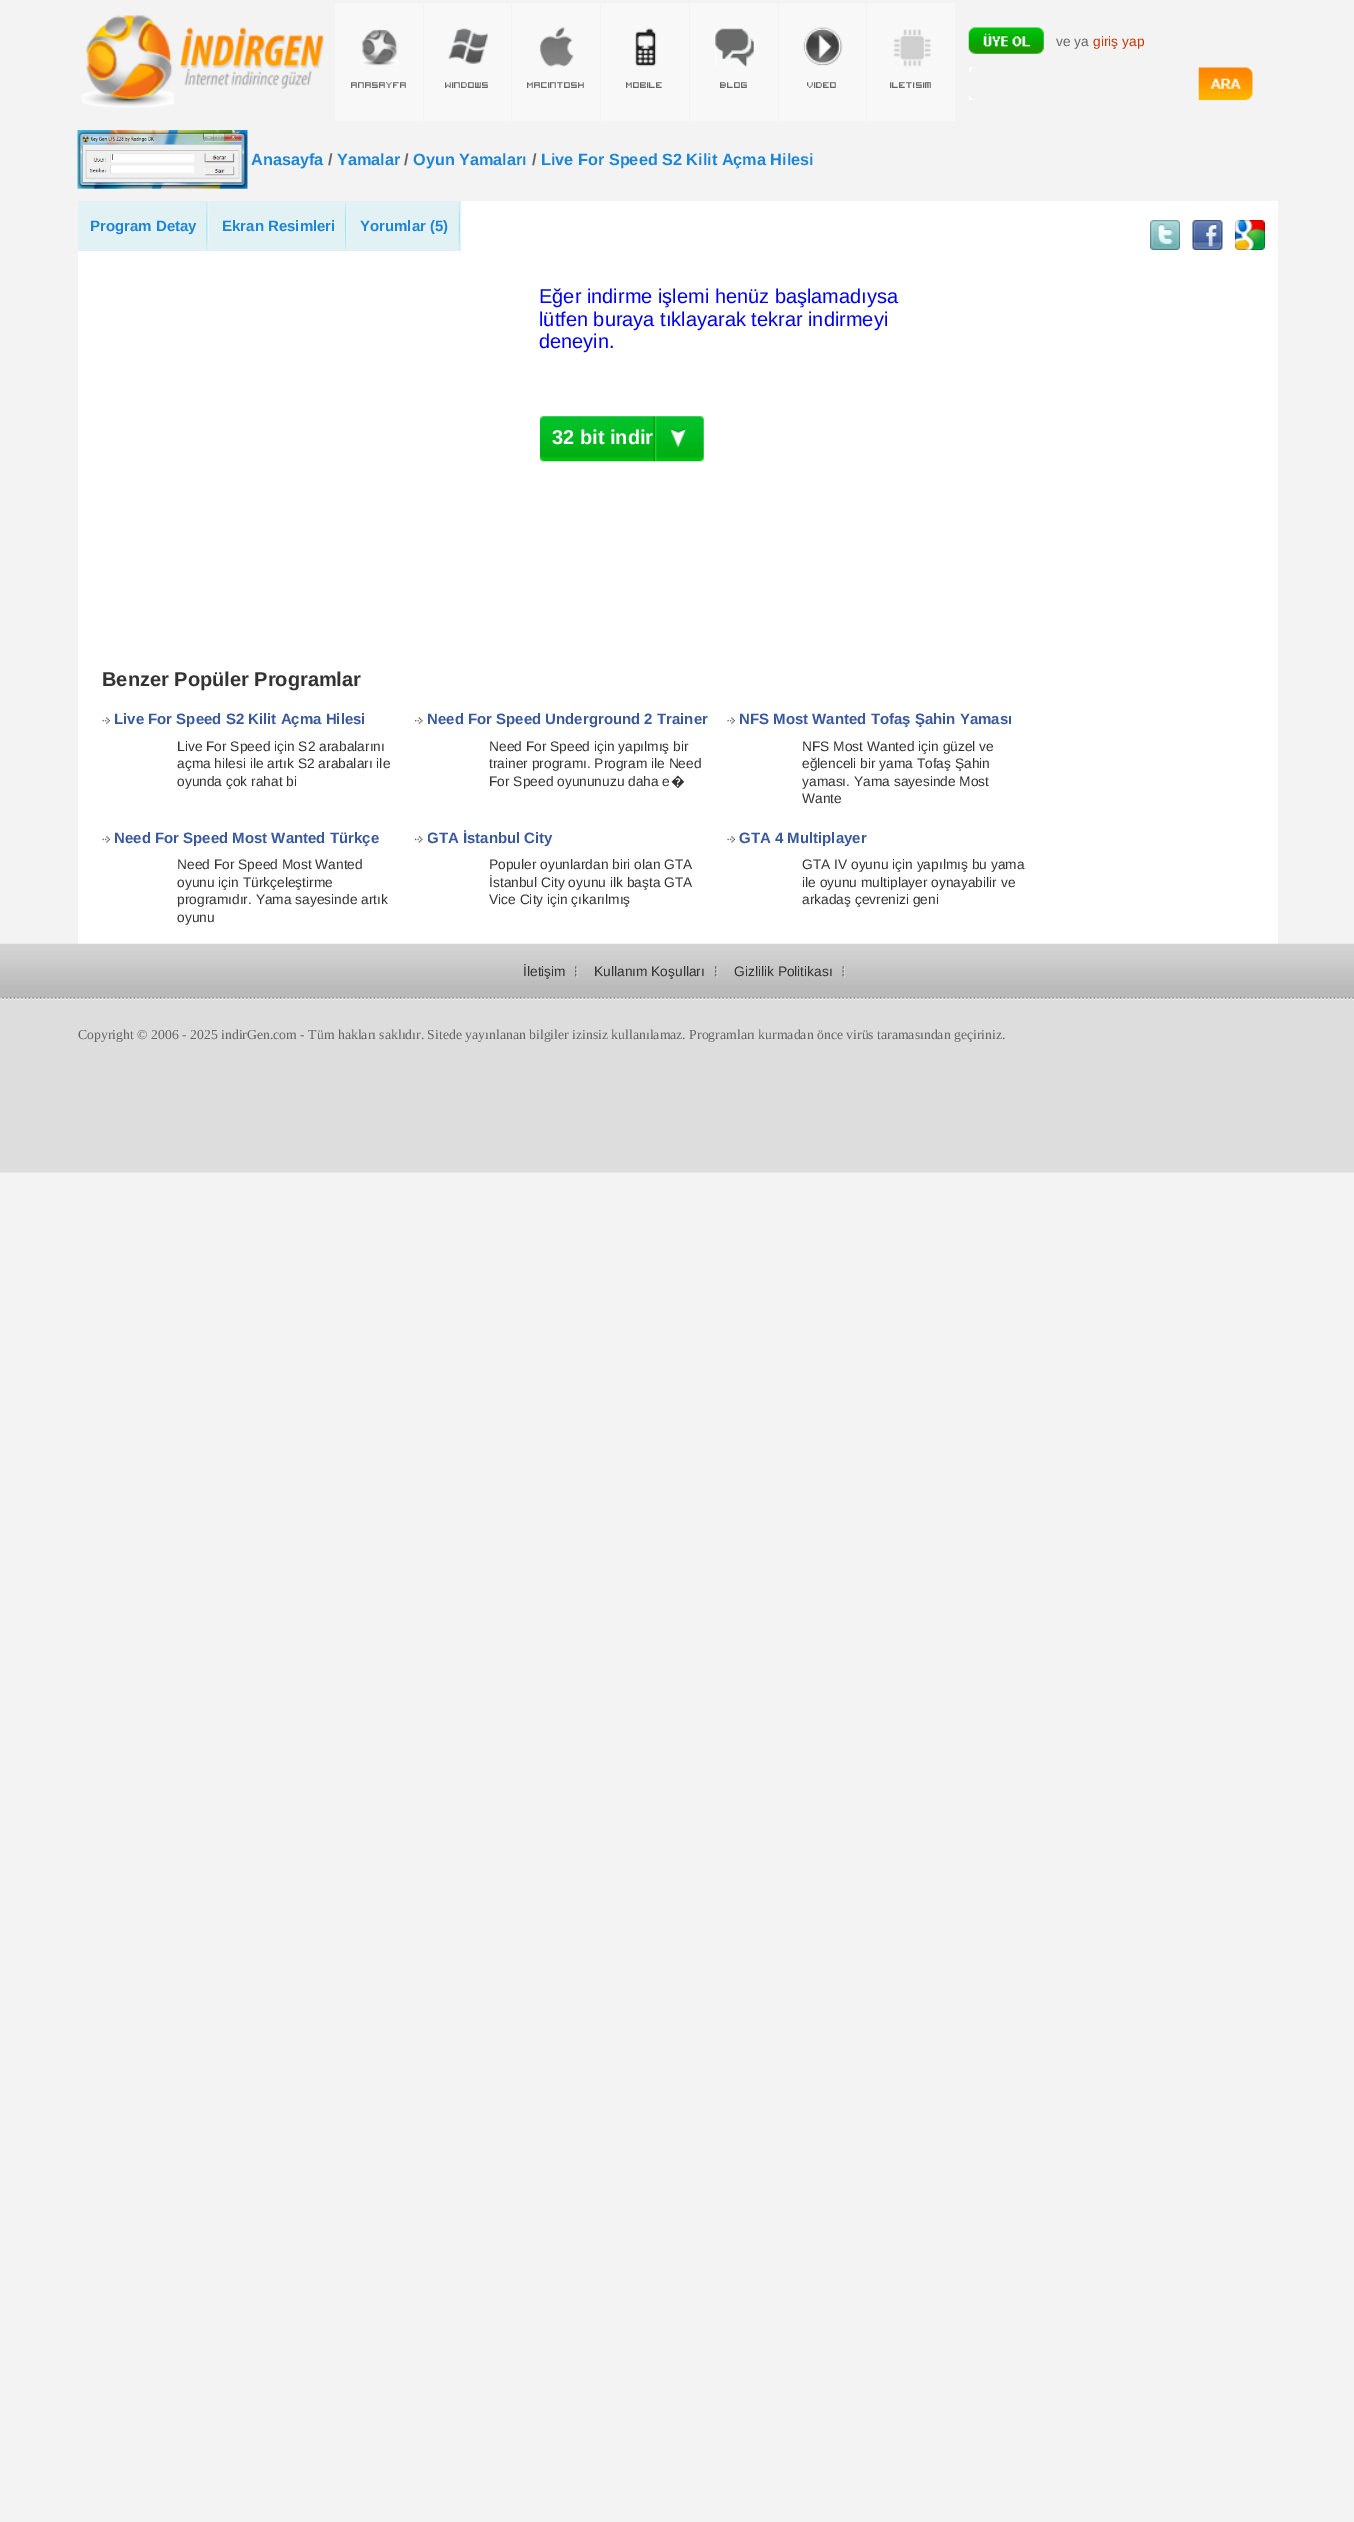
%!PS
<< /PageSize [1354 2522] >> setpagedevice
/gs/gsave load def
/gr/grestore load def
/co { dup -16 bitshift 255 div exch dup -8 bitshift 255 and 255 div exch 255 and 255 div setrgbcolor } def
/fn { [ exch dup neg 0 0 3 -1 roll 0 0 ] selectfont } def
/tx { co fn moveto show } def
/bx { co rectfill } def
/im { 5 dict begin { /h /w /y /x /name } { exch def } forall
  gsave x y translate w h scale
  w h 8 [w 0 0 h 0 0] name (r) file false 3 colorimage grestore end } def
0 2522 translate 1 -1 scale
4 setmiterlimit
0 0 1354 2522 16#F3F3F3 bx
(media/1.raw) 81 14 243 94 im
(media/2.raw) 968 27 76 27 im
(media/3.raw) 969 67 4 33 im
(media/4.raw) 1198 67 55 33 im
335 3 88 118 16#F8F8F8 bx
(media/5.raw) 360 29 39 37 im
424 3 87 118 16#F8F8F8 bx
(media/6.raw) 448 28 40 36 im
512 3 88 118 16#F8F8F8 bx
(media/7.raw) 539 27 35 40 im
601 3 88 118 16#F8F8F8 bx
(media/8.raw) 635 28 22 39 im
690 3 88 118 16#F8F8F8 bx
(media/9.raw) 715 28 39 39 im
779 3 87 118 16#F8F8F8 bx
(media/10.raw) 803 27 40 39 im
867 3 88 118 16#F8F8F8 bx
(media/11.raw) 893 29 39 38 im
(media/12.raw) 77 130 171 59 im
461 201 817 50 16#FFFFFF bx
78 201 383 50 16#E2F1F4 bx
(media/13.raw) 206 201 3 50 im
(media/14.raw) 345 201 3 50 im
(media/15.raw) 458 201 4 50 im
78 251 1200 693 16#FFFFFF bx
(media/16.raw) 1150 220 30 30 im
(media/17.raw) 1192 220 31 30 im
(media/18.raw) 1235 220 30 30 im
(media/19.raw) 540 416 164 46 im
(media/20.raw) 102 717 8 7 im
(media/21.raw) 415 717 8 7 im
(media/20.raw) 727 717 8 7 im
(media/22.raw) 102 836 8 7 im
(media/23.raw) 415 836 8 7 im
(media/22.raw) 727 836 8 7 im
(media/24.raw) 0 943 1354 230 im
(media/25.raw) 575 966 3 12 im
(media/25.raw) 715 966 3 12 im
(media/26.raw) 842 966 3 12 im
(ve ya) 1056 46 /LiberationSans-Regular 13.75 16#666666 tx
(giriş yap) 1093 46 /LiberationSans-Regular 13.75 16#CC3300 tx
(Anasayfa) 351 88 /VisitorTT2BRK-Regular 15 16#666666 tx
(Windows) 445 88 /VisitorTT2BRK-Regular 15 16#666666 tx
(Macintosh) 527 88 /VisitorTT2BRK-Regular 15 16#666666 tx
(Mobile) 626 88 /VisitorTT2BRK-Regular 15 16#666666 tx
(Blog) 720 88 /VisitorTT2BRK-Regular 15 16#666666 tx
(Video) 807 88 /VisitorTT2BRK-Regular 15 16#666666 tx
(iletisim) 890 88 /VisitorTT2BRK-Regular 15 16#666666 tx
(Anasayfa) 251 165 /LiberationSans-Bold 16.25 16#1E86D4 tx
(/) 328 165 /LiberationSans-Bold 16.25 16#666666 tx
(Yamalar) 337 165 /LiberationSans-Bold 16.25 16#1E86D4 tx
(/) 404 165 /LiberationSans-Bold 16.25 16#666666 tx
(Oyun Yamaları) 413 165 /LiberationSans-Bold 16.25 16#1E86D4 tx
(/) 532 165 /LiberationSans-Bold 16.25 16#666666 tx
(Live For Speed S2 Kilit Açma Hilesi) 541 165 /LiberationSans-Bold 16.25 16#1E86D4 tx
(Program Detay) 90 231 /LiberationSans-Bold 15 16#1E86D4 tx
(Ekran Resimleri) 222 231 /LiberationSans-Bold 15 16#1E86D4 tx
(Yorumlar \(5\)) 360 231 /LiberationSans-Bold 15 16#1E86D4 tx
(Eğer indirme işlemi henüz başlamadıysa) 539 303 /LiberationSans-Regular 20 16#0000EE tx
(lütfen buraya tıklayarak tekrar indirmeyi) 539 326 /LiberationSans-Regular 20 16#0000EE tx
(deneyin.) 539 348 /LiberationSans-Regular 20 16#0000EE tx
(32 bit indir) 552 444 /LiberationSans-Bold 20 16#FFFFFF tx
(Benzer Popüler Programlar) 102 686 /LiberationSans-Bold 20 16#333333 tx
(Live For Speed S2 Kilit Açma Hilesi) 114 724 /LiberationSans-Bold 15 16#3A599D tx
(Live For Speed için S2 arabalarını) 177 751 /LiberationSans-Regular 13.75 16#333333 tx
(açma hilesi ile artık S2 arabaları ile) 177 768 /LiberationSans-Regular 13.75 16#333333 tx
(oyunda çok rahat bi) 177 786 /LiberationSans-Regular 13.75 16#333333 tx
(Need For Speed Underground 2 Trainer) 427 724 /LiberationSans-Bold 15 16#3A599D tx
(Need For Speed için yapılmış bir) 489 751 /LiberationSans-Regular 13.75 16#333333 tx
(trainer programı. Program ile Need) 489 768 /LiberationSans-Regular 13.75 16#333333 tx
(For Speed oyununuzu daha e) 489 786 /LiberationSans-Regular 13.75 16#333333 tx
(�) 671 786 /NotoSans-Regular 13.75 16#333333 tx
(NFS Most Wanted Tofaş Şahin Yaması) 739 724 /LiberationSans-Bold 15 16#3A599D tx
(NFS Most Wanted için güzel ve) 802 751 /LiberationSans-Regular 13.75 16#333333 tx
(eğlenceli bir yama Tofaş Şahin) 802 768 /LiberationSans-Regular 13.75 16#333333 tx
(yaması. Yama sayesinde Most) 802 786 /LiberationSans-Regular 13.75 16#333333 tx
(Wante) 802 803 /LiberationSans-Regular 13.75 16#333333 tx
(Need For Speed Most Wanted Türkçe) 114 843 /LiberationSans-Bold 15 16#3A599D tx
(Need For Speed Most Wanted) 177 869 /LiberationSans-Regular 13.75 16#333333 tx
(oyunu için Türkçeleştirme) 177 887 /LiberationSans-Regular 13.75 16#333333 tx
(programıdır. Yama sayesinde artık) 177 904 /LiberationSans-Regular 13.75 16#333333 tx
(oyunu) 177 922 /LiberationSans-Regular 13.75 16#333333 tx
gs
428 826 300 30 rectclip
(GTA İstanbul City) 427 843 /LiberationSans-Bold 15 16#3A599D tx
gr
(Populer oyunlardan biri olan GTA) 489 869 /LiberationSans-Regular 13.75 16#333333 tx
(İstanbul City oyunu ilk başta GTA) 489 887 /LiberationSans-Regular 13.75 16#333333 tx
(Vice City için çıkarılmış) 489 904 /LiberationSans-Regular 13.75 16#333333 tx
(GTA 4 Multiplayer) 739 843 /LiberationSans-Bold 15 16#3A599D tx
(GTA IV oyunu için yapılmış bu yama) 802 869 /LiberationSans-Regular 13.75 16#333333 tx
(ile oyunu multiplayer oynayabilir ve) 802 887 /LiberationSans-Regular 13.75 16#333333 tx
(arkadaş çevrenizi geni) 802 904 /LiberationSans-Regular 13.75 16#333333 tx
(İletişim) 523 976 /LiberationSans-Regular 13.75 16#333333 tx
(Kullanım Koşulları) 594 976 /LiberationSans-Regular 13.75 16#333333 tx
(Gizlilik Politikası) 734 976 /LiberationSans-Regular 13.75 16#333333 tx
(Copyright © 2006 - 2025 indirGen.com - Tüm hakları saklıdır. Sitede yayınlanan bilgiler izinsiz kullanılamaz. Programları kurmadan önce virüs taramasından geçiriniz.) 78 1039 /LiberationSerif-Regular 13.75 16#666666 tx
showpage
